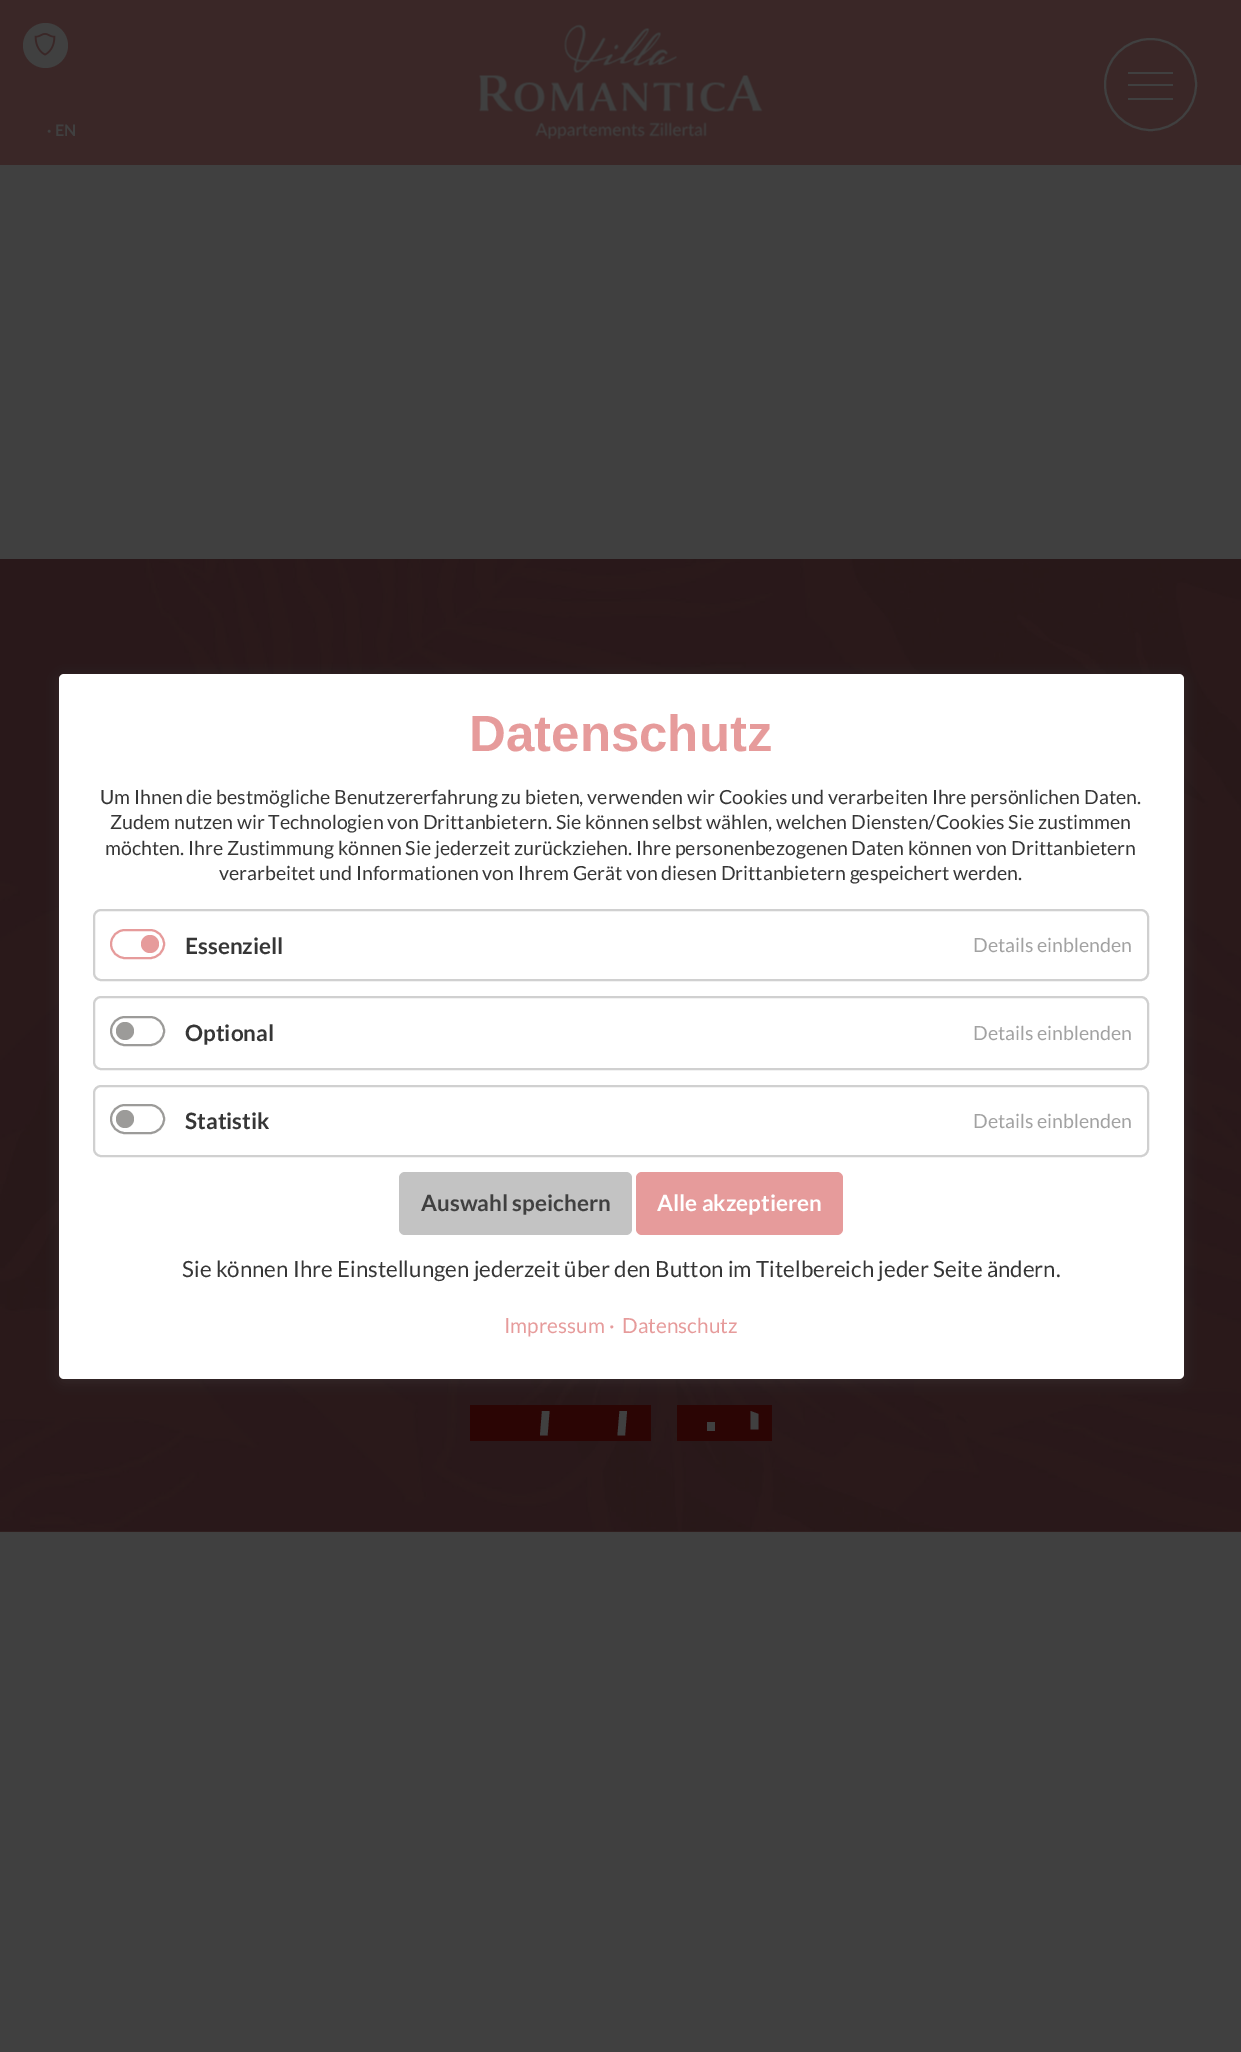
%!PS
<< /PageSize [1241 2052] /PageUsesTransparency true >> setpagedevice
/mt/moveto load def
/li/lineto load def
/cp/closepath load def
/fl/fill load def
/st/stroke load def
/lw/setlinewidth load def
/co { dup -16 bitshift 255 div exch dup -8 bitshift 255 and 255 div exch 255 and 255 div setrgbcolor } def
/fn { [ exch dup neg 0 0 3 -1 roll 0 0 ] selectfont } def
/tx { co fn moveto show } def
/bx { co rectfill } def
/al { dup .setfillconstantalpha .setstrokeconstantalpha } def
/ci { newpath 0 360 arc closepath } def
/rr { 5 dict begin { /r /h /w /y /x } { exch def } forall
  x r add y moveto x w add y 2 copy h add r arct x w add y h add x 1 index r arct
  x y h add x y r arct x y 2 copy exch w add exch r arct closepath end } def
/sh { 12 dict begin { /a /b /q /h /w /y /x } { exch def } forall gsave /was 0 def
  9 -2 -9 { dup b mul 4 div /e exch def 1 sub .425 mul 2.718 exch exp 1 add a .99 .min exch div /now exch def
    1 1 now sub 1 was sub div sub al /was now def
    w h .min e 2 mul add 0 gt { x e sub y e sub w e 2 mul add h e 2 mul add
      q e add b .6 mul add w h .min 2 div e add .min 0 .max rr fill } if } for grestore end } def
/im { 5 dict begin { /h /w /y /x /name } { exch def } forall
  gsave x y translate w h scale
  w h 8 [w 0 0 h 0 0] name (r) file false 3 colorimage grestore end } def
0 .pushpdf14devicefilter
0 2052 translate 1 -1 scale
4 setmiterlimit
0 0 1241 2052 16#404040 bx
0 0 1241 165 16#3A2727 bx
16#404040 co
45.5 45.5 22.5 ci fl
(media/1.raw) 34 33 22 23 im
(media/2.raw) 479 24 284 116 im
2 lw
1150.5 84.5 45.5 ci st
1128 84 45 2 16#404040 bx
1128 72 45 2 16#404040 bx
1128 98 45 2 16#404040 bx
0 1531 1241 1 16#2F1E1E bx
(media/3.raw) 0 559 1241 972 im
470 1405 181 36 16#2B0504 bx
677 1405 95 36 16#2B0504 bx
16#404040 co
547.5 1435.5 mt 540 1435.5 li 542 1411 li 549.5 1411 li cp fl
625 1435.5 mt 617.5 1435.5 li 619.5 1411 li 627 1411 li cp fl
707 1422 8 9 16#404040 bx
750.5 1429.5 mt 758.5 1429.5 li 758.5 1414 li 750.5 1411 li cp fl
16#636363 co
59 677 1125 705 5 6 .2 sh
16#FFFFFF co
59 674 1125 705 5 rr fl
16#D0D0D0 co
94 910 1054 70 7 rr st
16#E69B9B co
111 930 53 28 14 rr st
150 944 9 ci fl
16#D0D0D0 co
94 997 1054 72 7 rr st
16#9C9B99 co
111 1017 53 28 14 rr st
125 1031 9 ci fl
16#D0D0D0 co
94 1086 1054 70 7 rr st
16#9C9B99 co
111 1105 53 28 14 rr st
125 1119 9 ci fl
16#C3C3C3 co
399 1172 233 63 6 rr fl
16#E69B9B co
636 1172 207 63 6 rr fl
(· EN) 47 136 /Lato-Bold 16 16#404040 tx
(Datenschutz) 469 751 /LiberationSans-Bold 51 16#E69B9B tx
(Um Ihnen die bestmögliche Benutzererfahrung zu bieten, verwenden wir Cookies und verarbeiten Ihre persönlichen Daten.) 100 804 /Lato-Regular 19.5 16#363636 tx
(Zudem nutzen wir Technologien von Drittanbietern. Sie können selbst wählen, welchen Diensten/Cookies Sie zustimmen) 110 829 /Lato-Regular 19.5 16#363636 tx
(möchten. Ihre Zustimmung können Sie jederzeit zurückziehen. Ihre personenbezogenen Daten können von Drittanbietern) 105 855 /Lato-Regular 19.5 16#363636 tx
(verarbeitet und Informationen von Ihrem Gerät von diesen Drittanbietern gespeichert werden.) 219 880 /Lato-Regular 19.5 16#363636 tx
(Essenziell) 185 954 /Lato-Bold 22.5 16#363636 tx
(Details einblenden) 973 952 /Lato-Regular 19.5 16#A2A2A2 tx
(Optional) 185 1041 /Lato-Bold 22.5 16#363636 tx
(Details einblenden) 973 1040 /Lato-Regular 19.5 16#A2A2A2 tx
(Statistik) 185 1129 /Lato-Bold 22.5 16#363636 tx
(Details einblenden) 973 1128 /Lato-Regular 19.5 16#A2A2A2 tx
(Auswahl speichern) 421 1211 /Lato-Bold 22.5 16#404040 tx
(Alle akzeptieren) 657 1211 /Lato-Bold 22.5 16#FFFFFF tx
(Sie können Ihre Einstellungen jederzeit über den Button im Titelbereich jeder Seite ändern.) 182 1277 /Lato-Regular 22.3 16#363636 tx
(Impressum) 504 1333 /Lato-Regular 20.75 16#E69B9B tx
(·) 609 1333 /Lato-Regular 20.75 16#E69B9B tx
(Datenschutz) 622 1333 /Lato-Regular 20.75 16#E69B9B tx
.poppdf14devicefilter showpage
